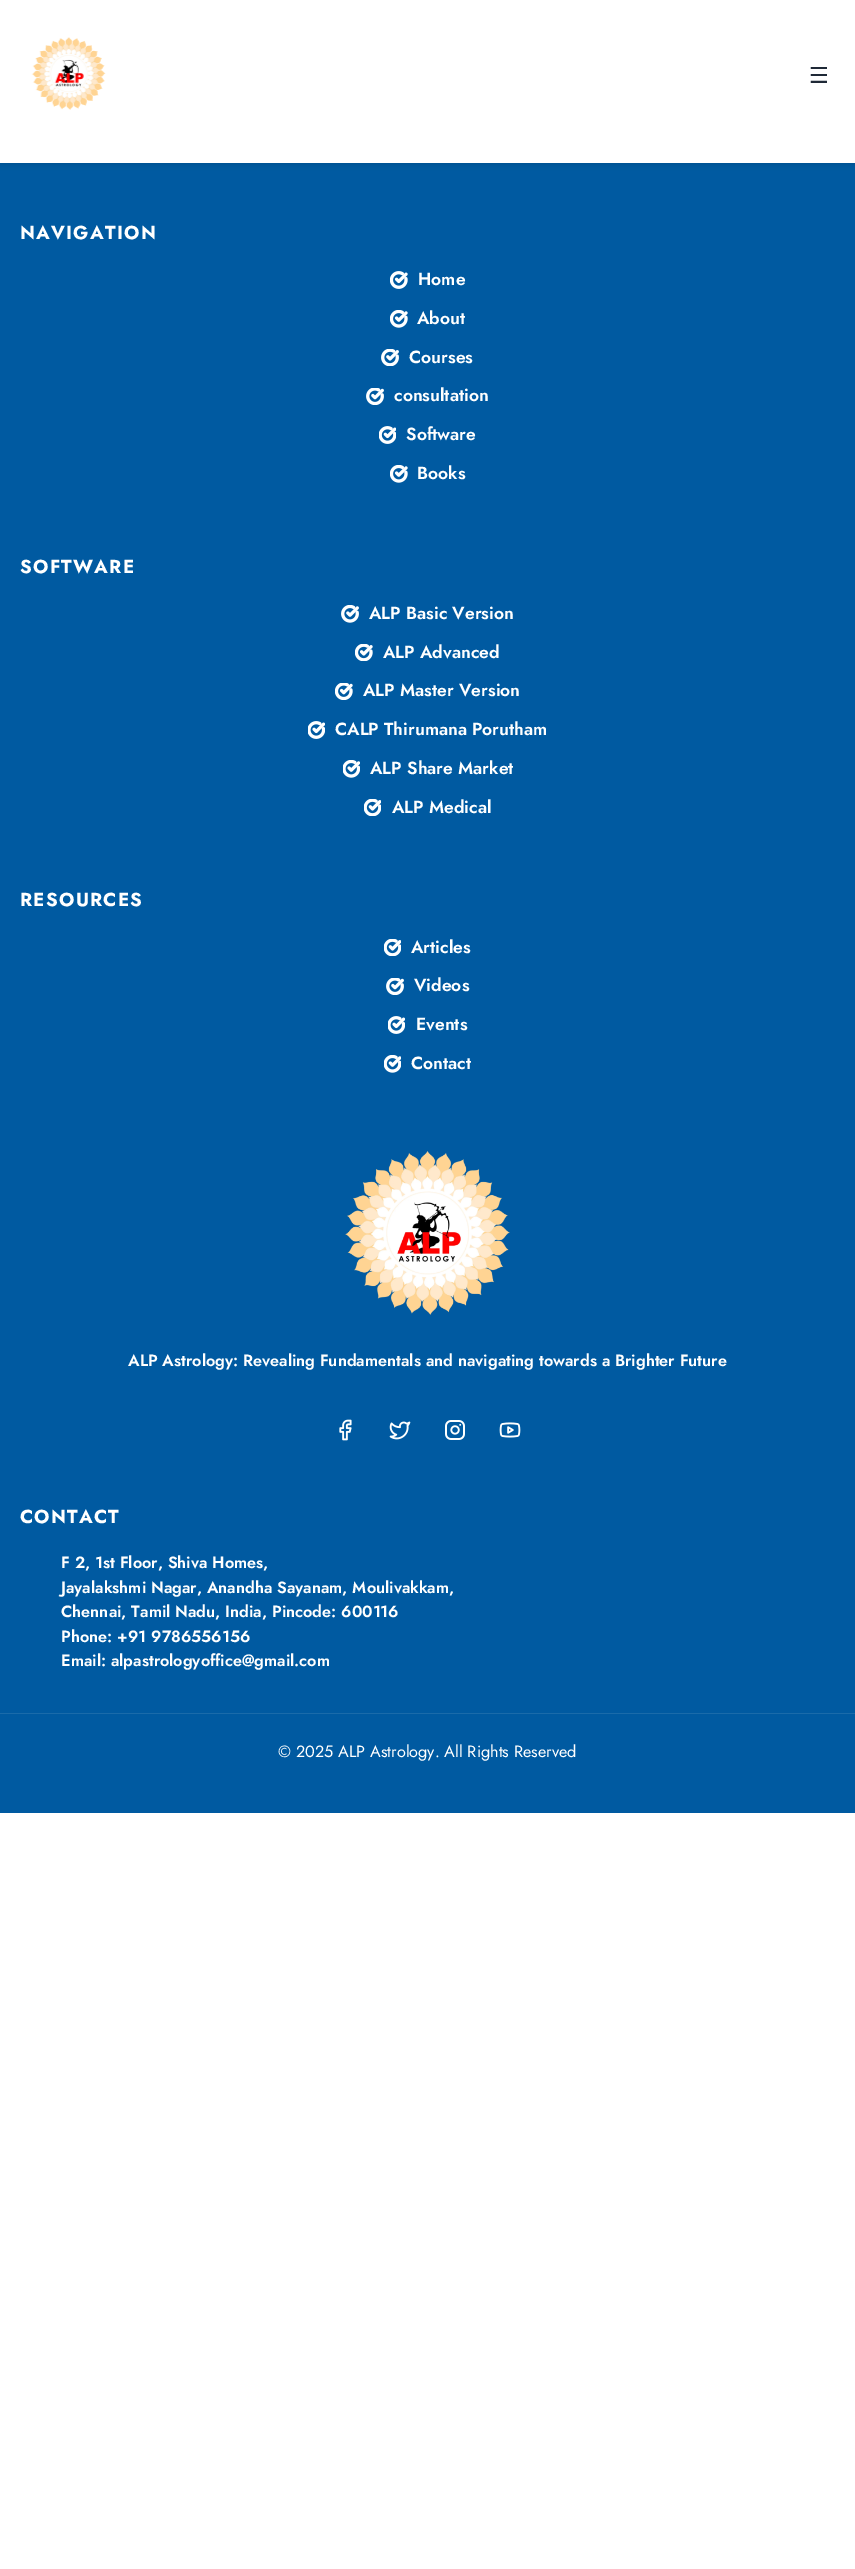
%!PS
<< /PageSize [855 2569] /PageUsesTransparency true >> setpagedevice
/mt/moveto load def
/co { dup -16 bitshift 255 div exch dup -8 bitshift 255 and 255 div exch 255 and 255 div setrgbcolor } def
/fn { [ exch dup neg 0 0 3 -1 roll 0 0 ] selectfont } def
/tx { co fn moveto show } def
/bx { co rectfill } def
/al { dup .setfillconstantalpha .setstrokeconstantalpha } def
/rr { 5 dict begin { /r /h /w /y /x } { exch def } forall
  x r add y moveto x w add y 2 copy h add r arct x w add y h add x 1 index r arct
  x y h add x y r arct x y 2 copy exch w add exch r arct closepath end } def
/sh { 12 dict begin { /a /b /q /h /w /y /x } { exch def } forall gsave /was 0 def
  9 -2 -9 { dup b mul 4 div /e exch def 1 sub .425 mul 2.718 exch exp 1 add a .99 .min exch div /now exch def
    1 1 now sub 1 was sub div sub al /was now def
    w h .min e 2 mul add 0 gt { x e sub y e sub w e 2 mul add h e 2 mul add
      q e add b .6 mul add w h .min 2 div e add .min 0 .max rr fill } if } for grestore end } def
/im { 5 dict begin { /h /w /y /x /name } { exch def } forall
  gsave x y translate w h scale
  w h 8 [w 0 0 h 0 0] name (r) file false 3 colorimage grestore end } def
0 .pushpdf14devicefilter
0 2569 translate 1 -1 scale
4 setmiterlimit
0 0 855 2569 16#FFFFFF bx
0 163 855 1650 16#005AA1 bx
16#000000 co
0 3 855 162 0 2.5 .1 sh
0 0 855 163 16#FFFFFF bx
(media/1.raw) 31 37 75 73 im
(media/2.raw) 390 271 18 18 im
(media/3.raw) 390 310 18 18 im
(media/4.raw) 381 349 18 17 im
(media/5.raw) 366 388 18 17 im
(media/6.raw) 379 426 17 18 im
(media/3.raw) 390 465 18 18 im
(media/7.raw) 341 605 18 18 im
(media/8.raw) 355 644 18 17 im
(media/9.raw) 335 683 18 17 im
(media/10.raw) 308 721 17 18 im
(media/11.raw) 343 760 17 18 im
(media/12.raw) 364 799 17 17 im
(media/12.raw) 384 939 17 17 im
(media/5.raw) 386 978 18 17 im
(media/10.raw) 388 1016 17 18 im
(media/13.raw) 384 1055 17 18 im
(media/14.raw) 345 1151 165 164 im
(media/15.raw) 339 1419 13 22 im
(media/16.raw) 389 1421 22 19 im
(media/17.raw) 445 1420 20 20 im
(media/18.raw) 499 1422 22 16 im
0 1713 855 1 16#1A6BAA bx
(☰) 809 83 /DejaVuSans-Regular 22 16#1F2937 tx
/Jost-Bold 18.75 fn
16#FFFFFF co
20 239 mt 1.25 0 (NAVIGATION) ashow
(Home) 418 285 /Jost-SemiBold 17.5 16#FFFFFF tx
(About) 417 324 /Jost-SemiBold 17.5 16#FFFFFF tx
(Courses) 409 363 /Jost-SemiBold 17.5 16#FFFFFF tx
(consultation) 394 401 /Jost-SemiBold 17.5 16#FFFFFF tx
(Software) 406 440 /Jost-SemiBold 17.5 16#FFFFFF tx
(Books) 417 479 /Jost-SemiBold 17.5 16#FFFFFF tx
/Jost-Bold 18.75 fn
20 573 mt 1.25 0 (SOFTWARE) ashow
(ALP Basic Version) 369 619 /Jost-SemiBold 17.5 16#FFFFFF tx
(ALP Advanced) 383 658 /Jost-SemiBold 17.5 16#FFFFFF tx
(ALP Master Version) 363 696 /Jost-SemiBold 17.5 16#FFFFFF tx
(CALP Thirumana Porutham) 335 735 /Jost-SemiBold 17.5 16#FFFFFF tx
(ALP Share Market) 370 774 /Jost-SemiBold 17.5 16#FFFFFF tx
(ALP Medical) 392 813 /Jost-SemiBold 17.5 16#FFFFFF tx
/Jost-Bold 18.75 fn
20 906 mt 1.25 0 (RESOURCES) ashow
(Articles) 411 953 /Jost-SemiBold 17.5 16#FFFFFF tx
(Videos) 414 991 /Jost-SemiBold 17.5 16#FFFFFF tx
(Events) 416 1030 /Jost-SemiBold 17.5 16#FFFFFF tx
(Contact) 411 1069 /Jost-SemiBold 17.5 16#FFFFFF tx
(ALP Astrology: Revealing Fundamentals and navigating towards a Brighter Future) 128 1366 /Jost-SemiBold 16.25 16#FFFFFF tx
/Jost-Bold 18.75 fn
20 1523 mt 1.25 0 (CONTACT) ashow
(F 2, 1st Floor, Shiva Homes,) 61 1568 /Jost-SemiBold 16.25 16#FFFFFF tx
(Jayalakshmi Nagar, Anandha Sayanam, Moulivakkam,) 61 1593 /Jost-SemiBold 16.25 16#FFFFFF tx
(Chennai, Tamil Nadu, India, Pincode: 600116) 61 1617 /Jost-SemiBold 16.25 16#FFFFFF tx
(Phone: +91 9786556156) 61 1642 /Jost-SemiBold 16.25 16#FFFFFF tx
(Email: alpastrologyoffice@gmail.com) 61 1666 /Jost-SemiBold 16.25 16#FFFFFF tx
(© 2025 ALP Astrology. All Rights Reserved) 278 1757 /Jost-Regular 16.25 16#FFFFFF tx
.poppdf14devicefilter showpage
